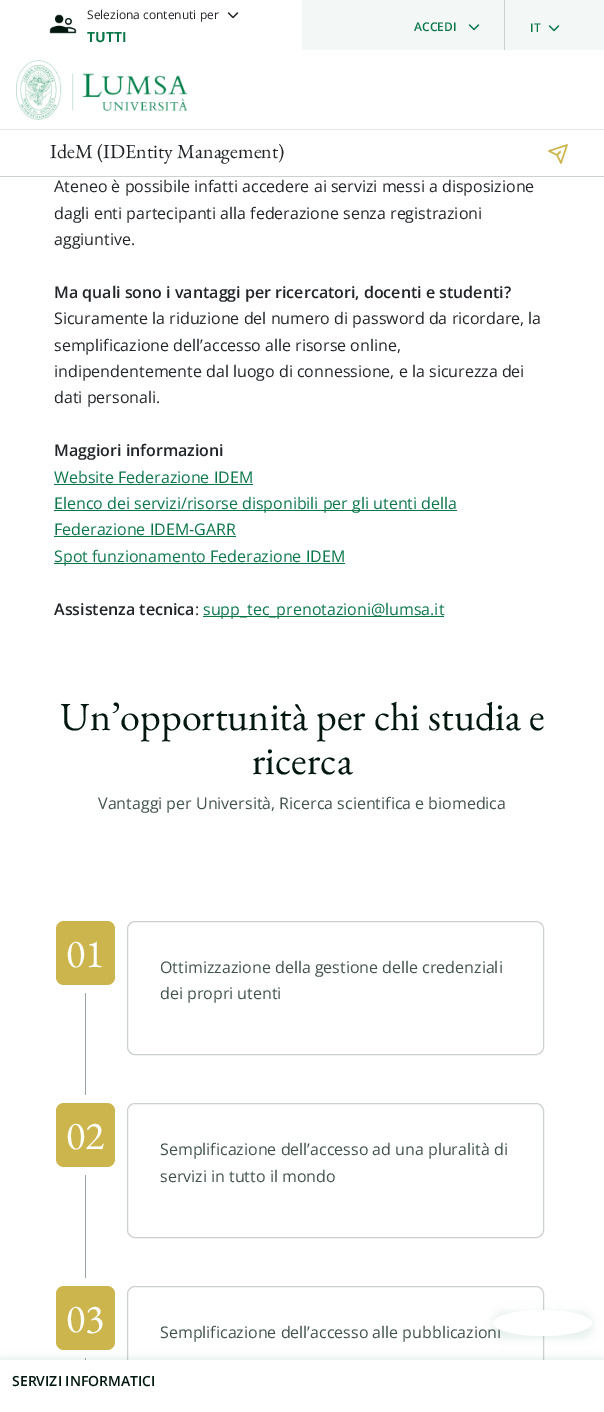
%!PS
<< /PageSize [604 1412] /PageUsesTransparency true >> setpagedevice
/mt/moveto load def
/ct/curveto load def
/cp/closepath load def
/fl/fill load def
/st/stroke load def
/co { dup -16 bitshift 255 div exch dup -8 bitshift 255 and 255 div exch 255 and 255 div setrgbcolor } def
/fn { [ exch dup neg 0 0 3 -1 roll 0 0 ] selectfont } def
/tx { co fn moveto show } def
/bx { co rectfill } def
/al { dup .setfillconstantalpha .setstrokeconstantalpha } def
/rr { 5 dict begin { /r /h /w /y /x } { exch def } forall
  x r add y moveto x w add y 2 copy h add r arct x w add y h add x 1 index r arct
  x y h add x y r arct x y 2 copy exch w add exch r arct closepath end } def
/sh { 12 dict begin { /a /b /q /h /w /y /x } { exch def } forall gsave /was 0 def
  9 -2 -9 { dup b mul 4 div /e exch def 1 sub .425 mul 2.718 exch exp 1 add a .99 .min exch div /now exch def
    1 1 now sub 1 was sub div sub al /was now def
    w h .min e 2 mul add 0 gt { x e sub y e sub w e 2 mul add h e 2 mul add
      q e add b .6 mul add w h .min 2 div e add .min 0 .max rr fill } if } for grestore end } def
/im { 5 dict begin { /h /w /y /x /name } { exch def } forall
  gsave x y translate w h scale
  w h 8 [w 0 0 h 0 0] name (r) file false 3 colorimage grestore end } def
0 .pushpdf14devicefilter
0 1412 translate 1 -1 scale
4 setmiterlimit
0 0 604 1412 16#FFFFFF bx
(media/1.raw) 49 14 28 20 im
(media/2.raw) 227 12 12 7 im
302 0 302 50 16#F3F8F6 bx
504 0 1 50 16#CCD1CF bx
(media/3.raw) 468 24 12 7 im
(media/3.raw) 548 25 12 7 im
0 129 604 1 16#E6E8E7 bx
(media/4.raw) 16 60 172 60 im
0 176 604 1 16#CCD1CF bx
(media/5.raw) 548 144 20 20 im
54 484 199 1 16#0B7749 bx
54 510 403 1 16#0B7749 bx
54 536 182 1 16#0B7749 bx
54 563 291 1 16#0B7749 bx
203 616 241 1 16#0B7749 bx
16#CCB54C co
56 921 59 64 8 rr fl
85 993 1 102 16#9AA39F bx
16#CCD1CF co
127.5 921.5 416 133 7.5 rr st
16#CCB54C co
56 1103 59 64 8 rr fl
85 1175 1 103 16#9AA39F bx
16#CCD1CF co
127.5 1103.5 416 134 7.5 rr st
16#CCB54C co
56 1286 59 64 8 rr fl
85 1358 1 2 16#9AA39F bx
16#CCD1CF co
127.5 1286.5 416 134 7.5 rr st
16#0B7749 co
493 1312 99 26 13 4 .1 sh
0 1358 604 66 0 4 .1 sh
0 1360 604 52 16#FFFFFF bx
(Seleziona contenuti per) 87 19 /OpenSans-Regular 12 16#212529 tx
(TUTTI) 87 42 /OpenSans-Bold 14 16#0B7749 tx
(ACCEDI) 414 31 /OpenSans-SemiBold 12 16#0B7749 tx
(IT) 530 32 /OpenSans-SemiBold 12 16#0B7749 tx
(IdeM \(IDEntity Management\)) 50 158 /EBGaramond-Regular 20 16#212529 tx
(Ateneo è possibile infatti accedere ai servizi messi a disposizione) 54 192 /OpenSans-Regular 16 16#212529 tx
(dagli enti partecipanti alla federazione senza registrazioni) 54 219 /OpenSans-Regular 16 16#212529 tx
(aggiuntive.) 54 245 /OpenSans-Regular 16 16#212529 tx
(Ma quali sono i vantaggi per ricercatori, docenti e studenti?) 54 298 /OpenSans-SemiBold 16 16#212529 tx
(Sicuramente la riduzione del numero di password da ricordare, la) 54 324 /OpenSans-Regular 16 16#212529 tx
(semplificazione dell’accesso alle risorse online,) 54 351 /OpenSans-Regular 16 16#212529 tx
(indipendentemente dal luogo di connessione, e la sicurezza dei) 54 377 /OpenSans-Regular 16 16#212529 tx
(dati personali.) 54 403 /OpenSans-Regular 16 16#212529 tx
(Maggiori informazioni) 54 456 /OpenSans-SemiBold 16 16#212529 tx
(Website Federazione IDEM) 54 483 /OpenSans-Regular 16 16#0B7749 tx
(Elenco dei servizi/risorse disponibili per gli utenti della) 54 509 /OpenSans-Regular 16 16#0B7749 tx
(Federazione IDEM-GARR) 54 535 /OpenSans-Regular 16 16#0B7749 tx
(Spot funzionamento Federazione IDEM) 54 562 /OpenSans-Regular 16 16#0B7749 tx
(Assistenza tecnica) 54 615 /OpenSans-SemiBold 16 16#212529 tx
(:) 195 615 /OpenSans-Regular 16 16#212529 tx
(supp_tec_prenotazioni@lumsa.it) 203 615 /OpenSans-Regular 16 16#0B7749 tx
(Un’opportunità per chi studia e) 60 730 /EBGaramond-Regular 40 16#02180F tx
(ricerca) 252 774 /EBGaramond-Regular 40 16#02180F tx
(Vantaggi per Università, Ricerca scientifica e biomedica) 98 809 /OpenSans-Regular 16 16#41524B tx
(01) 66 967 /EBGaramond-Regular 40 16#FFFFFF tx
(Ottimizzazione della gestione delle credenziali) 160 973 /OpenSans-Regular 16 16#41524B tx
(dei propri utenti) 160 999 /OpenSans-Regular 16 16#41524B tx
(02) 66 1149 /EBGaramond-Regular 40 16#FFFFFF tx
(Semplificazione dell’accesso ad una pluralità di) 160 1155 /OpenSans-Regular 16 16#41524B tx
(servizi in tutto il mondo) 160 1182 /OpenSans-Regular 16 16#41524B tx
(03) 66 1332 /EBGaramond-Regular 40 16#FFFFFF tx
(Semplificazione dell’accesso alle pubblicazioni) 160 1338 /OpenSans-Regular 16 16#41524B tx
16#FFFFFF co
542.5 1310 mt 570 1310 592 1316 592 1323 ct 592 1330 570 1336 542.5 1336 ct 515 1336 493 1330 493 1323 ct 493 1316 515 1310 542.5 1310 ct cp fl
(SERVIZI INFORMATICI) 12 1386 /OpenSans-SemiBold 14 16#02180F tx
.poppdf14devicefilter showpage
